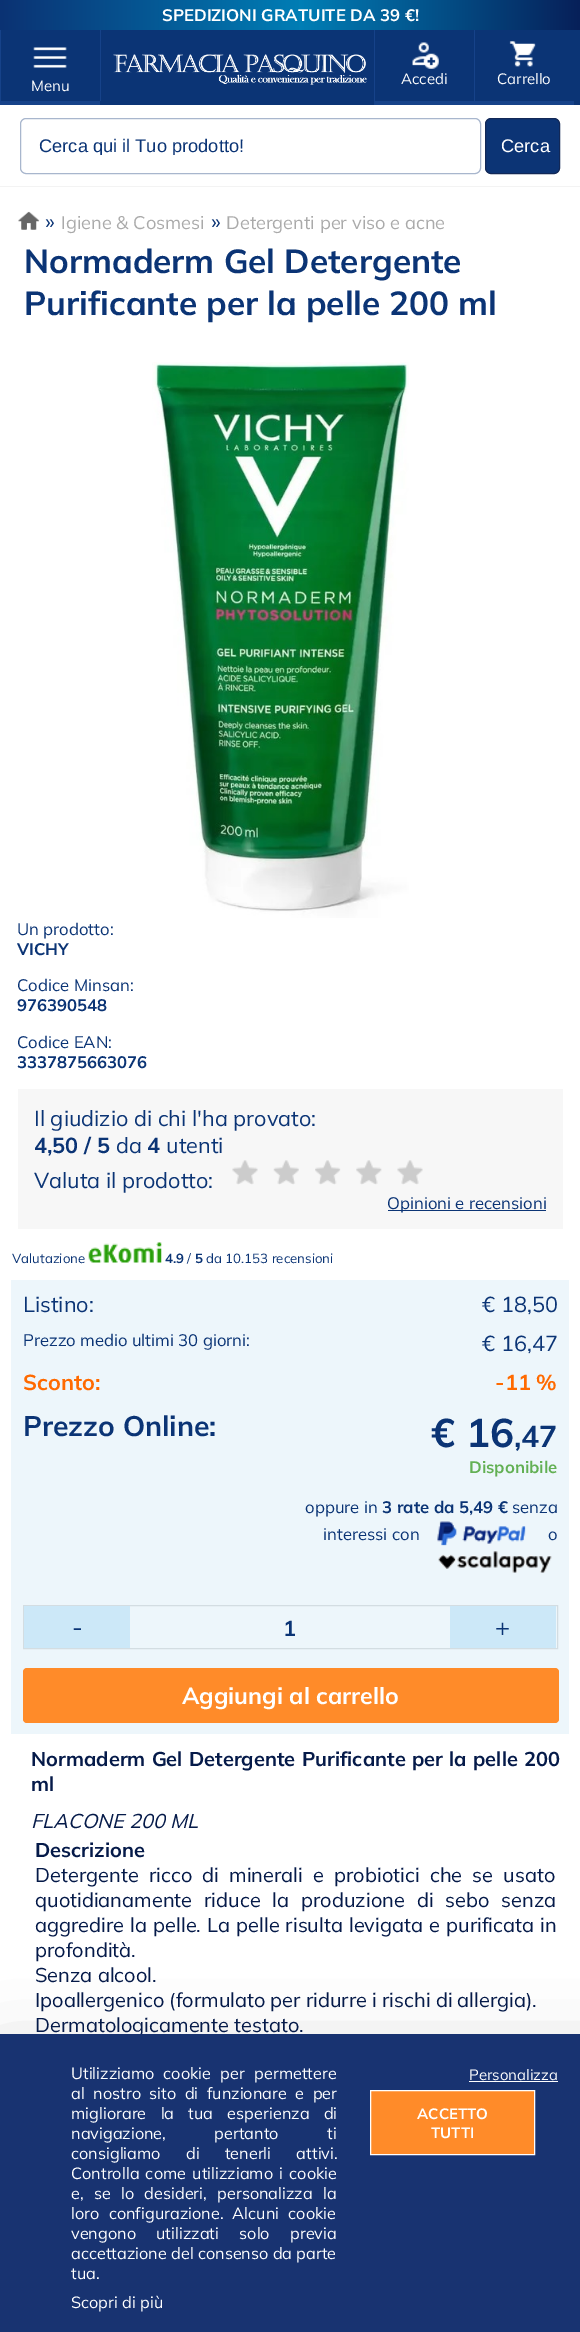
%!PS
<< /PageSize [580 2332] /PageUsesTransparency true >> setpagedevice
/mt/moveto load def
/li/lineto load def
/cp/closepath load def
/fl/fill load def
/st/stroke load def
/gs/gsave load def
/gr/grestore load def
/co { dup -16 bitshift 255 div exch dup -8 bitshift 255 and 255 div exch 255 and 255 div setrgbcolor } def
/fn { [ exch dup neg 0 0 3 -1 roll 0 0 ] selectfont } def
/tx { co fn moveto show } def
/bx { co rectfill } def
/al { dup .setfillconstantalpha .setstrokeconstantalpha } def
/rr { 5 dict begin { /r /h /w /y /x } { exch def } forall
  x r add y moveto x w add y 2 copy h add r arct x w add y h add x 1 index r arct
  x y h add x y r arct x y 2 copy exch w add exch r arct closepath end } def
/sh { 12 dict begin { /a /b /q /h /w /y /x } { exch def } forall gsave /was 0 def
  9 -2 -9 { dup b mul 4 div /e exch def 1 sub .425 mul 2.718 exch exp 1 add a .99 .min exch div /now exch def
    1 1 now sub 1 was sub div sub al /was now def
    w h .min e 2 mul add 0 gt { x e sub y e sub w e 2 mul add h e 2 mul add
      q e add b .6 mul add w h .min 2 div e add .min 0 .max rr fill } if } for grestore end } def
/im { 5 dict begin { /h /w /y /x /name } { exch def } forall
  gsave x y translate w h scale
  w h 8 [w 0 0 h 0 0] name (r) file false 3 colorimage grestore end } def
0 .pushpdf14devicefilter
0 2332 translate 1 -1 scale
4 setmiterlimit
0 0 580 2332 16#FFFFFF bx
gs 0 0 mt 580 0 li 580 30 li 0 30 li cp clip newpath
<< /ShadingType 2 /ColorSpace /DeviceRGB /Coords [580 15 0 15] /Extend [true true] /Function << /FunctionType 3 /Domain [0 1] /Functions [<< /FunctionType 2 /Domain [0 1] /C0 [.027 .125 .349] /C1 [0 .494 .71] /N 1 >> << /FunctionType 2 /Domain [0 1] /C0 [0 .494 .71] /C1 [.043 .196 .451] /N 1 >>] /Bounds [.48] /Encode [0 1 0 1] >> >> shfill gr
1 30 579 75 16#0B3475 bx
0 101 100 4 16#164289 bx
0 30 1 75 16#164289 bx
(media/1.raw) 33 47 34 21 im
100 30 1 71 16#164289 bx
(media/2.raw) 113 54 254 31 im
374 101 200 4 16#164289 bx
374 30 1 75 16#164289 bx
(media/3.raw) 412 42 27 27 im
474 30 1 75 16#164289 bx
(media/4.raw) 509 41 27 26 im
16#A8B6CD co
20.5 118.5 460 55 5.5 rr st
16#0C3475 co
485.5 118.5 74 55 5.5 rr gs fl gr
16#122857 co
st
0 186 580 1 16#F3F3F3 bx
(media/5.raw) 18 211 22 19 im
(media/6.raw) 152 362 257 556 im
18 1089 545 140 16#F7F7F7 bx
(media/7.raw) 232 1160 26 25 im
(media/8.raw) 273 1160 26 25 im
(media/9.raw) 315 1160 26 25 im
(media/10.raw) 356 1160 26 25 im
(media/7.raw) 397 1160 26 25 im
388 1210 158 1 16#0B3475 bx
(media/11.raw) 88 1242 74 21 im
11 1280 558 454 16#EDF6FB bx
(media/12.raw) 437 1521 89 25 im
(media/13.raw) 438 1551 114 22 im
16#D3DDE2 co
23.5 1605.5 534 43 rectstroke
24 1606 106 42 16#CCE8F8 bx
450 1606 106 42 16#CCE8F8 bx
16#FF8B29 co
23 1668 536 55 4 rr fl
16#000000 co
0 2074 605 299 0 42.5 .3 sh
(SPEDIZIONI GRATUITE DA 39 €!) 162 21 /Mulish-Bold 16.7 16#FFFFFF tx
(Menu) 31 91 /Mulish-Regular 15 16#FFFFFF tx
(Accedi) 401 84 /Mulish-Regular 15 16#FFFFFF tx
(Carrello) 497 84 /Mulish-Regular 15 16#FFFFFF tx
gs
39 135 424 20 rectclip
(Cerca qui il Tuo prodotto!) 39 152 /LiberationSans-Regular 18.25 16#0B3475 tx
gr
(Cerca) 501 152 /LiberationSans-Regular 18.25 16#FFFFFF tx
(») 45 229 /Mulish-Regular 21.7 16#0B3475 tx
(Igiene & Cosmesi) 61 229 /Mulish-Regular 18.25 16#AAAAAA tx
(») 211 229 /Mulish-Regular 21.7 16#0B3475 tx
(Detergenti per viso e acne) 226 229 /Mulish-Regular 18.25 16#AAAAAA tx
(Normaderm Gel Detergente) 24 273 /Mulish-Bold 33.3 16#0B3475 tx
(Purificante per la pelle 200 ml) 24 315 /Mulish-Bold 33.3 16#0B3475 tx
(Un prodotto:) 17 935 /Mulish-Regular 16.7 16#0B3475 tx
(VICHY) 17 955 /Mulish-Bold 16.7 16#0B3475 tx
(Codice Minsan:) 17 991 /Mulish-Regular 16.7 16#0B3475 tx
(976390548) 17 1011 /Mulish-Bold 16.7 16#0B3475 tx
(Codice EAN:) 17 1048 /Mulish-Regular 16.7 16#0B3475 tx
(3337875663076) 17 1068 /Mulish-Bold 16.7 16#0B3475 tx
(Il giudizio di chi l'ha provato:) 34 1126 /Mulish-Regular 21.7 16#0B3475 tx
(4,50 / 5) 34 1153 /Mulish-Bold 21.7 16#0B3475 tx
(da) 116 1153 /Mulish-Regular 21.7 16#0B3475 tx
(4) 147 1153 /Mulish-Bold 21.7 16#0B3475 tx
(utenti) 166 1153 /Mulish-Regular 21.7 16#0B3475 tx
(Valuta il prodotto:) 34 1188 /Mulish-Regular 21.7 16#0B3475 tx
(Opinioni e recensioni) 387 1209 /Mulish-Regular 16.7 16#0B3475 tx
(Valutazione) 12 1263 /Mulish-Regular 13.25 16#0B3475 tx
(4.9) 165 1263 /Mulish-Bold 13.25 16#0B3475 tx
(/) 187 1263 /Mulish-Regular 13.25 16#0B3475 tx
(5) 195 1263 /Mulish-Bold 13.25 16#0B3475 tx
(da 10.153 recensioni) 206 1263 /Mulish-Regular 13.25 16#0B3475 tx
(Listino:) 23 1312 /Mulish-Regular 21.7 16#0B3475 tx
(€ 18,50) 482 1312 /Mulish-Regular 21.7 16#0B3475 tx
(Prezzo medio ultimi 30 giorni:) 23 1346 /Mulish-Regular 16.7 16#0B3475 tx
(€ 16,47) 482 1351 /Mulish-Regular 21.7 16#0B3475 tx
(Sconto:) 23 1390 /Mulish-Bold 21.7 16#FF6A00 tx
(-11 %) 495 1390 /Mulish-Bold 21.7 16#FF6A00 tx
(Prezzo Online:) 23 1436 /Mulish-Bold 28.25 16#0B3475 tx
(€ 16) 431 1447 /Mulish-Bold 40 16#0B3475 tx
(,47) 514 1447 /Mulish-Bold 30 16#0B3475 tx
(Disponibile) 469 1473 /Mulish-Bold 16.7 16#63B054 tx
(oppure in) 305 1513 /Mulish-Regular 16.7 16#0B3475 tx
(3 rate da 5,49 €) 382 1513 /Mulish-Bold 16.7 16#0B3475 tx
(senza) 512 1513 /Mulish-Regular 16.7 16#0B3475 tx
(interessi con) 323 1540 /Mulish-Regular 16.7 16#0B3475 tx
(o) 548 1540 /Mulish-Regular 16.7 16#0B3475 tx
(-) 72 1636 /Mulish-Regular 25 16#0B3475 tx
(1) 283 1636 /Mulish-Bold 21.7 16#0B3475 tx
(+) 495 1636 /Mulish-Regular 25 16#0B3475 tx
(Aggiungi al carrello) 182 1704 /Mulish-Bold 23.25 16#FFFFFF tx
/Mulish-Bold 20 fn
16#051A49 co
31 1766 mt .75 0 32 (Normaderm Gel Detergente Purificante per la pelle 200) widthshow
(ml) 31 1791 /Mulish-Bold 20 16#051A49 tx
(FLACONE 200 ML) 31 1828 /Mulish-Italic 20 16#051A49 tx
(Descrizione) 35 1857 /Mulish-Bold 20 16#051A49 tx
/Mulish-Regular 20 fn
35 1882 mt 5 0 32 (Detergente ricco di minerali e probiotici che se usato) widthshow
35 1907 mt 6.75 0 32 (quotidianamente riduce la produzione di sebo senza) widthshow
35 1932 mt .9 0 32 (aggredire la pelle. La pelle risulta levigata e purificata in) widthshow
(profondità.) 35 1957 /Mulish-Regular 20 16#051A49 tx
(Senza alcool.) 35 1982 /Mulish-Regular 20 16#051A49 tx
(Ipoallergenico \(formulato per ridurre i rischi di allergia\).) 35 2007 /Mulish-Regular 20 16#051A49 tx
(Dermatologicamente testato.) 35 2032 /Mulish-Regular 20 16#051A49 tx
0 2034 580 298 16#183371 bx
/Mulish-Regular 16.25 fn
16#FFFFFF co
71 2079 mt 5 0 32 (Utilizziamo cookie per permettere) widthshow
71 2099 mt 4.25 0 32 (al nostro sito di funzionare e per) widthshow
71 2119 mt 10 0 32 (migliorare la tua esperienza di) widthshow
71 2139 mt 44 0 32 (navigazione, pertanto ti) widthshow
71 2159 mt 21 0 32 (consigliamo di tenerli attivi.) widthshow
71 2179 mt 2 0 32 (Controlla come utilizziamo i cookie) widthshow
71 2199 mt 6 0 32 (e, se lo desideri, personalizza la) widthshow
71 2219 mt 5 0 32 (loro configurazione. Alcuni cookie) widthshow
71 2239 mt 16 0 32 (vengono utilizzati solo previa) widthshow
(accettazione del consenso da parte) 71 2259 /Mulish-Regular 16.25 16#FFFFFF tx
(tua.) 71 2279 /Mulish-Regular 16.25 16#FFFFFF tx
(Scopri di più) 71 2308 /Mulish-Regular 16.25 16#FFFFFF tx
(Personalizza) 469 2080 /Mulish-Regular 15 16#FFFFFF tx
469 2081 89 1 16#FFFFFF bx
16#FF8B29 co
370.5 2090.5 mt 534.5 2090.5 li 534.5 2154.5 li 370.5 2154.5 li cp gs fl gr
16#FFFFFF co
st
(ACCETTO) 417 2119 /Mulish-Bold 15 16#FFFFFF tx
(TUTTI) 431 2138 /Mulish-Bold 15 16#FFFFFF tx
.poppdf14devicefilter showpage
